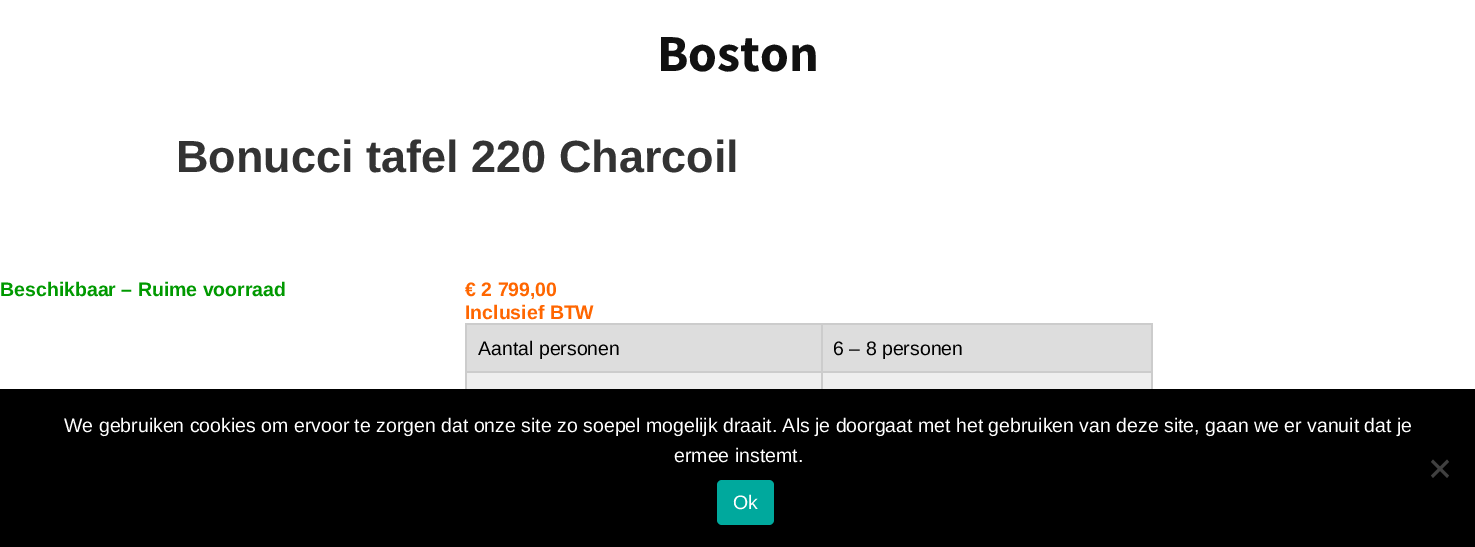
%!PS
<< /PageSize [1475 547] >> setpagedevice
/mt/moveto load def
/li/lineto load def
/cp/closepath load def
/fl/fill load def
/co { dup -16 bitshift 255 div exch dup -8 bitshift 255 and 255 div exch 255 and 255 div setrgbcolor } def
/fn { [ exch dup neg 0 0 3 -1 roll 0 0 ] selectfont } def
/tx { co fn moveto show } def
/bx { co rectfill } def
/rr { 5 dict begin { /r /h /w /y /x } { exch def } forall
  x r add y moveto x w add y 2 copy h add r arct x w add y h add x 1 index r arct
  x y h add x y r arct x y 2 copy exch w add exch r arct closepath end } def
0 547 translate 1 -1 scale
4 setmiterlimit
0 0 1475 547 16#FFFFFF bx
467 325 684 46 16#DDDDDD bx
821 323 331 2 16#CCCCCC bx
821 371 331 2 16#CCCCCC bx
467 373 684 16 16#EEEEEE bx
821 371 2 18 16#CCCCCC bx
465 371 357 2 16#CCCCCC bx
821 323 2 49 16#CCCCCC bx
465 323 357 2 16#CCCCCC bx
465 371 2 18 16#CCCCCC bx
465 323 2 49 16#CCCCCC bx
1151 371 2 18 16#CCCCCC bx
1151 323 2 49 16#CCCCCC bx
0 389 1475 158 16#000000 bx
16#404040 co
1447 459.5 mt 1449 462 li 1433 478 li 1431 475.5 li cp fl
1431 462 mt 1433 459.5 li 1449 475.5 li 1447 478 li cp fl
16#00A99D co
717 480 57 45 5 rr fl
(Boston) 657 71 /SourceSansPro-Bold 52 16#111111 tx
(Bonucci tafel 220 Charcoil) 176 172 /LiberationSans-Bold 45 16#333333 tx
(Beschikbaar – Ruime voorraad) 0 296 /LiberationSans-Bold 19.5 16#009900 tx
(€ 2 799,00) 465 296 /LiberationSans-Bold 19.5 16#FF6600 tx
(Inclusief BTW) 465 319 /LiberationSans-Bold 19.5 16#FF6600 tx
(Aantal personen) 478 355 /LiberationSans-Regular 19.5 16#000000 tx
(6 – 8 personen) 833 355 /LiberationSans-Regular 19.5 16#000000 tx
(We gebruiken cookies om ervoor te zorgen dat onze site zo soepel mogelijk draait. Als je doorgaat met het gebruiken van deze site, gaan we er vanuit dat je) 64 432 /LiberationSans-Regular 19.5 16#FFFFFF tx
(ermee instemt.) 674 462 /LiberationSans-Regular 19.5 16#FFFFFF tx
(Ok) 733 509 /LiberationSans-Regular 19.5 16#FFFFFF tx
showpage
